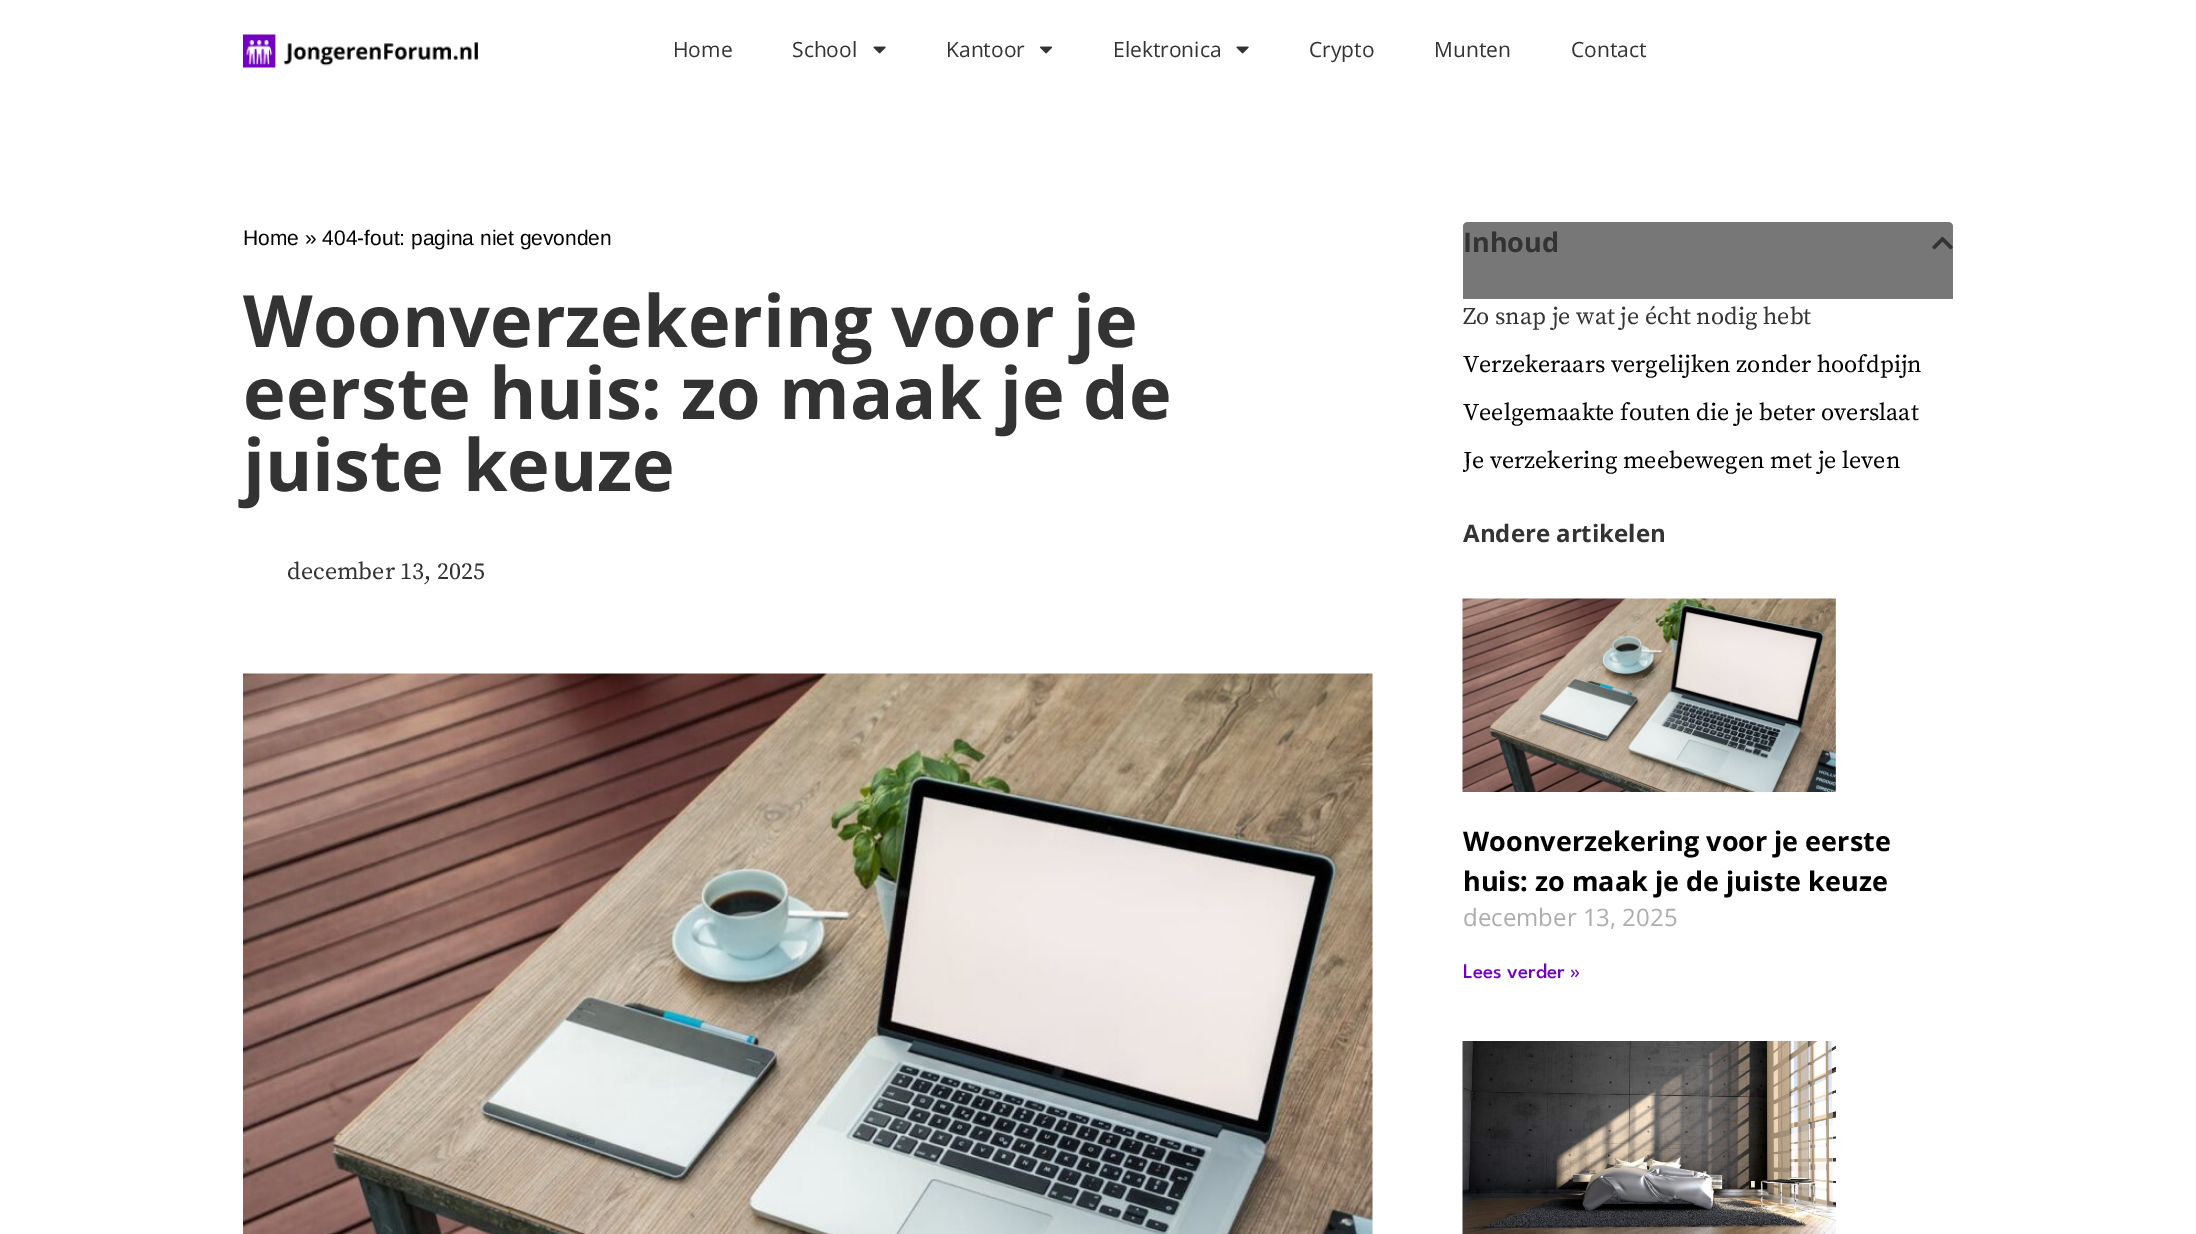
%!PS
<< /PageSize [2196 1234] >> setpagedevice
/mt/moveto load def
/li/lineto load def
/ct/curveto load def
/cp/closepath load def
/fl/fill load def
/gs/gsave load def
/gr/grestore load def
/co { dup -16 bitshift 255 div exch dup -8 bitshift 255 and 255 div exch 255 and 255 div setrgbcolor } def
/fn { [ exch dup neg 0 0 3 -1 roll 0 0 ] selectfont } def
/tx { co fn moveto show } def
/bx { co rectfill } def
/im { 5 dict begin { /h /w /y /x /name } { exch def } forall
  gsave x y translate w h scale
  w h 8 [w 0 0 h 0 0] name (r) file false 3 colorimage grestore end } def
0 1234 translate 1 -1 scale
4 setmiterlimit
0 0 2196 1234 16#FFFFFF bx
(media/1.raw) 243 34 235 34 im
(media/2.raw) 873 46 13 8 im
(media/3.raw) 1040 46 13 8 im
(media/2.raw) 1236 46 13 8 im
(media/4.raw) 243 673 1130 561 im
16#777777 co
1468 222 mt 1948 222 li 1951 222 1953 224 1953 227 ct 1953 299 li 1463 299 li 1463 227 li 1463 224 1465 222 1468 222 ct cp fl
(media/5.raw) 1932 236 21 14 im
(media/6.raw) 1462 598 374 194 im
(media/7.raw) 1462 1041 374 193 im
(Home) 673 57 /OpenSans-Regular 21 16#333333 tx
(School) 792 57 /OpenSans-Regular 21 16#333333 tx
(Kantoor) 946 57 /OpenSans-Regular 21 16#333333 tx
(Elektronica) 1113 57 /OpenSans-Regular 21 16#333333 tx
(Crypto) 1309 57 /OpenSans-Regular 21 16#333333 tx
(Munten) 1434 57 /OpenSans-Regular 21 16#333333 tx
(Contact) 1571 57 /OpenSans-Regular 21 16#333333 tx
(Home » 404-fout: pagina niet gevonden) 243 245 /LiberationSans-Regular 21 16#020101 tx
(Woonverzekering voor je) 243 347 /OpenSans-Bold 72 16#333333 tx
(eerste huis: zo maak je de) 243 419 /OpenSans-Bold 72 16#333333 tx
(juiste keuze) 243 491 /OpenSans-Bold 72 16#333333 tx
(december 13, 2025) 287 579 /SourceSerifPro-Regular 24 16#333333 tx
(Inhoud) 1463 252 /OpenSans-Bold 27 16#333333 tx
(Zo snap je wat je écht nodig hebt) 1463 324 /SourceSerifPro-Regular 24 16#333333 tx
(Verzekeraars vergelijken zonder hoofdpijn) 1463 372 /SourceSerifPro-Regular 24 16#020101 tx
(Veelgemaakte fouten die je beter overslaat) 1463 420 /SourceSerifPro-Regular 24 16#020101 tx
gs
1463 299 490 192 rectclip
(Je verzekering meebewegen met je leven) 1463 468 /SourceSerifPro-Regular 24 16#020101 tx
gr
(Andere artikelen) 1463 542 /OpenSans-Bold 24 16#333333 tx
(Woonverzekering voor je eerste) 1463 851 /OpenSans-Bold 27 16#020101 tx
(huis: zo maak je de juiste keuze) 1463 891 /OpenSans-Bold 27 16#020101 tx
(december 13, 2025) 1463 926 /OpenSans-Regular 24 16#ADADAD tx
(Lees verder ») 1463 978 /LeagueSpartan-Medium 21 16#7300C2 tx
showpage
